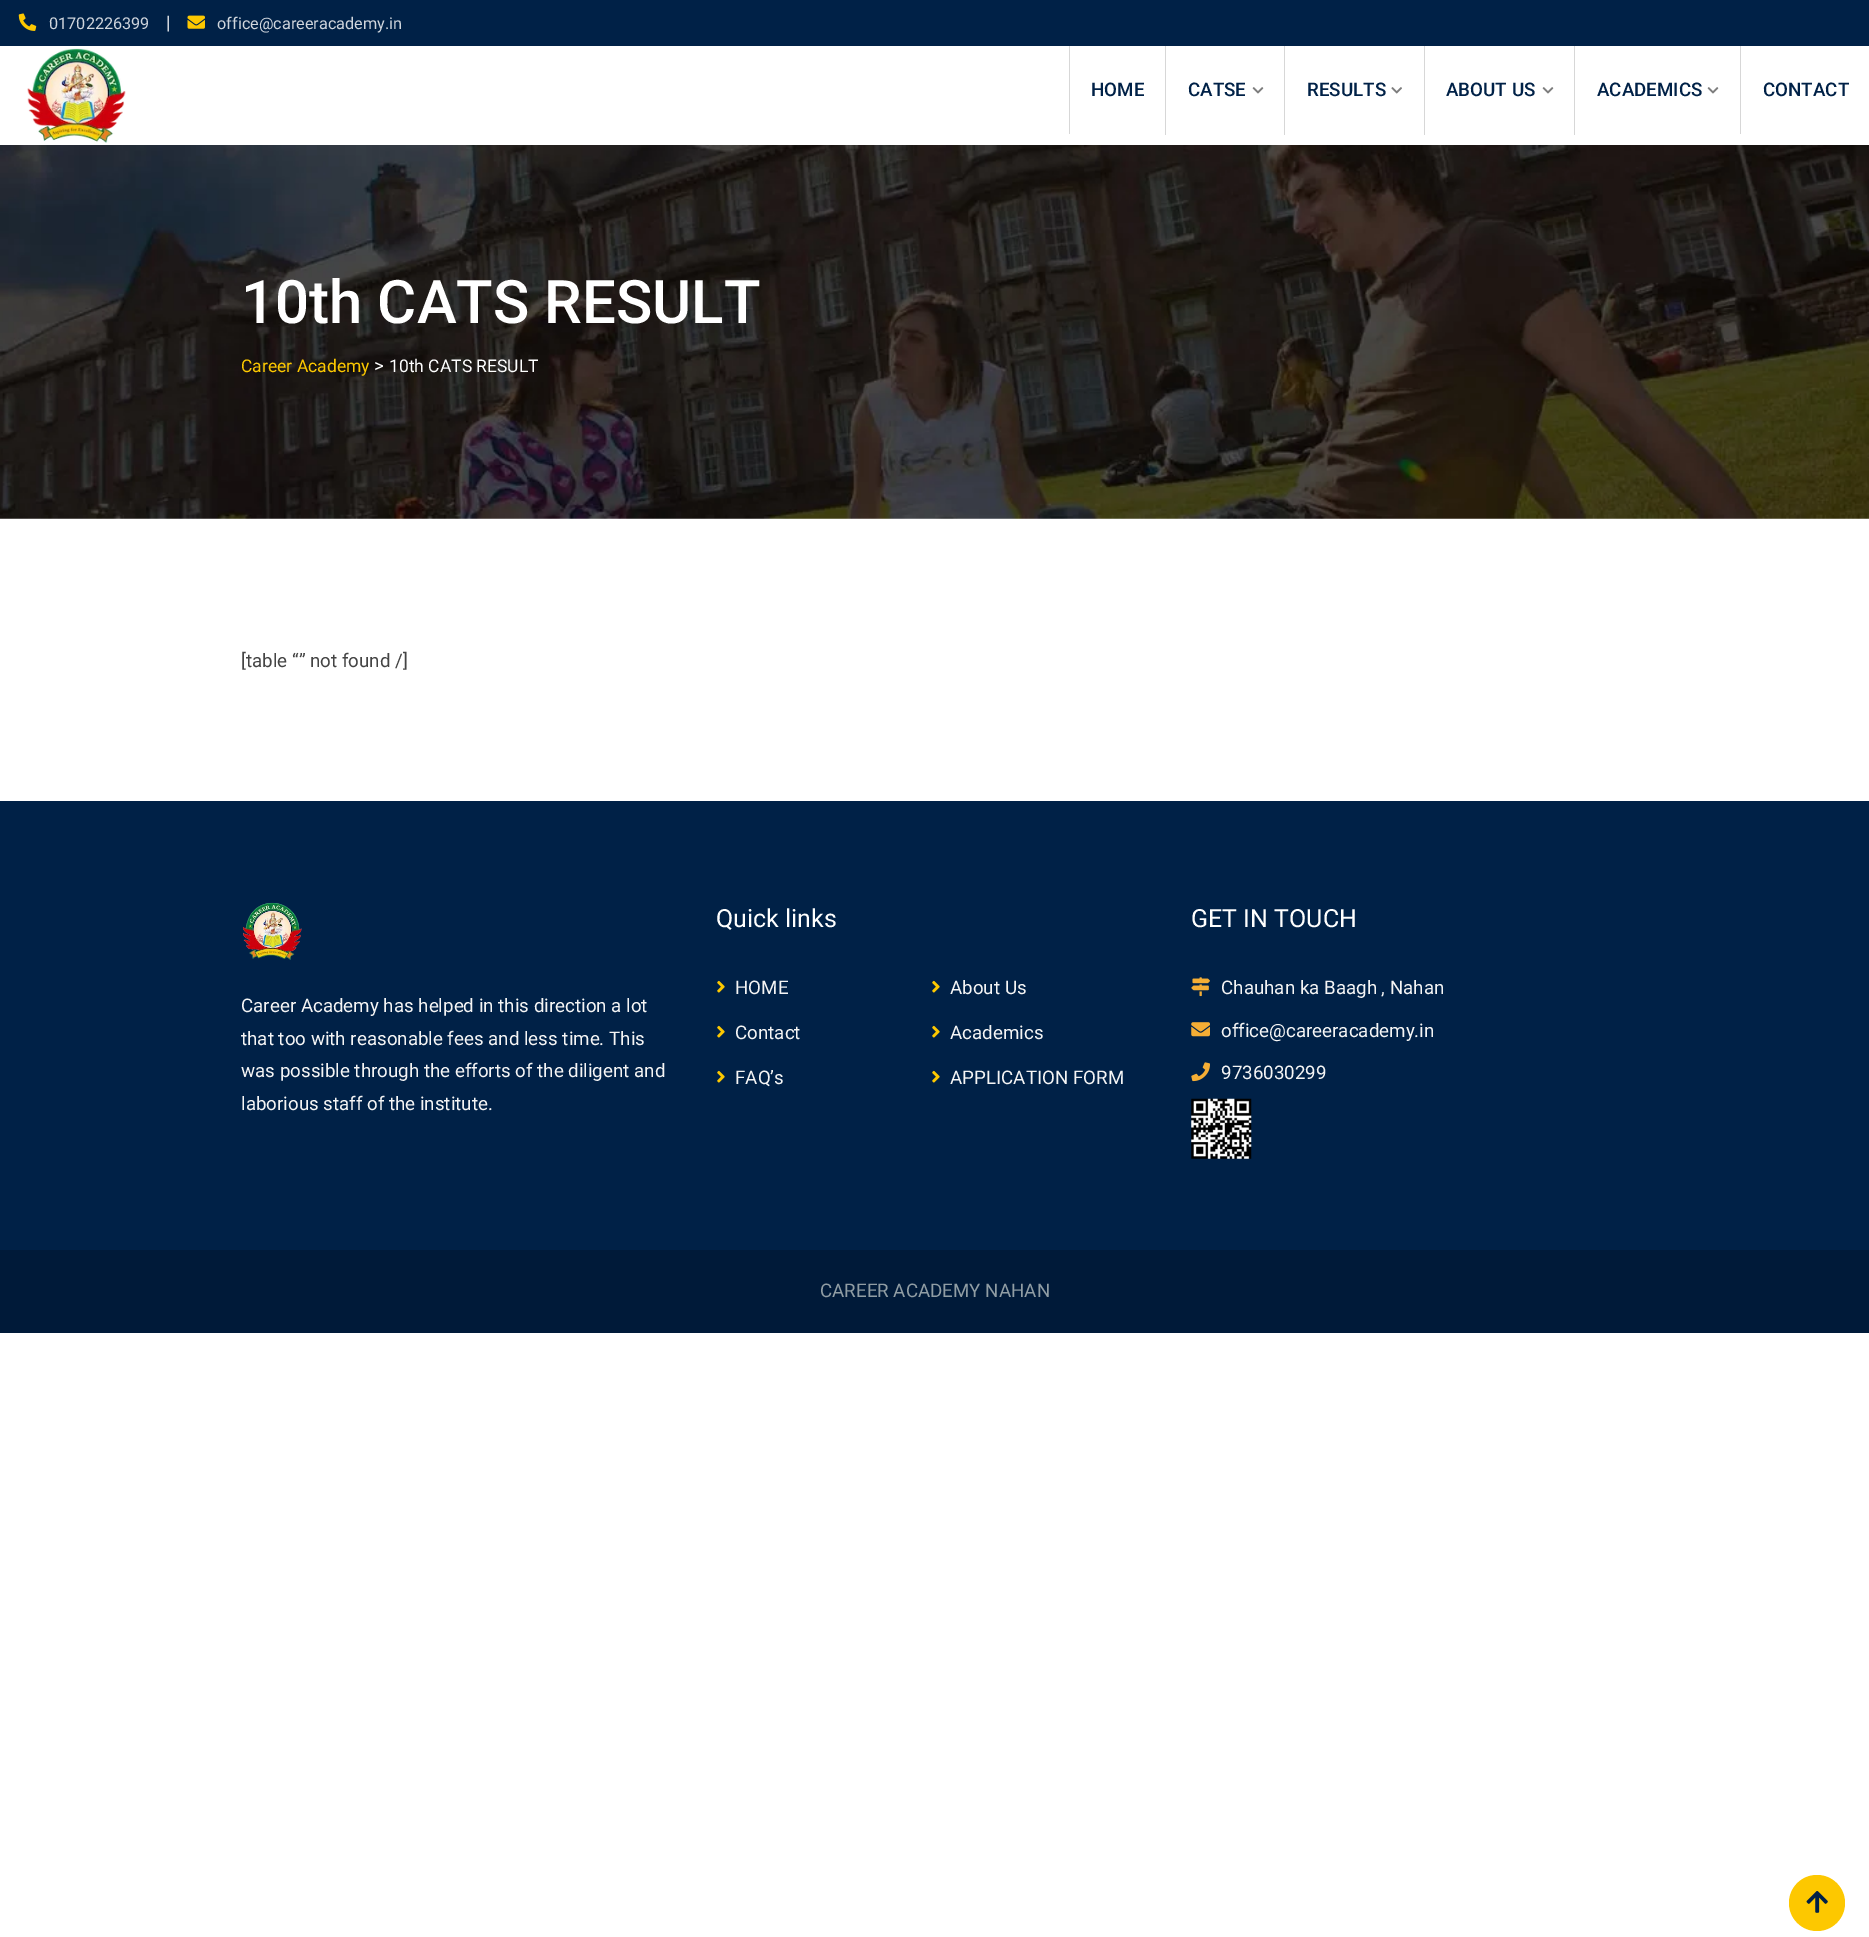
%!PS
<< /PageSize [1869 1937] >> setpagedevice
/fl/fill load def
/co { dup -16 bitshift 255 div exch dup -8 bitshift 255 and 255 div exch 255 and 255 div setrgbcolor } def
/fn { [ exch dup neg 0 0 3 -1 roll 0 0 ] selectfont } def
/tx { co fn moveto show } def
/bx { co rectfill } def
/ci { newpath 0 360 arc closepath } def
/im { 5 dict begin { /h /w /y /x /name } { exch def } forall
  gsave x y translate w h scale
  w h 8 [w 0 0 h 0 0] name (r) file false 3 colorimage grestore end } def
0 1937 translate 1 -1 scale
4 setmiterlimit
0 0 1869 1937 16#FFFFFF bx
0 0 1869 46 16#002147 bx
(media/1.raw) 18 13 19 18 im
(media/2.raw) 187 15 18 14 im
(media/3.raw) 27 48 99 95 im
1069 46 1 88 16#D7D7D7 bx
1165 46 1 89 16#D7D7D7 bx
(media/4.raw) 1252 87 12 7 im
1284 46 1 89 16#D7D7D7 bx
(media/5.raw) 1391 87 11 7 im
1424 46 1 89 16#D7D7D7 bx
(media/4.raw) 1542 87 12 7 im
1574 46 1 89 16#D7D7D7 bx
(media/4.raw) 1707 87 12 7 im
1740 46 1 88 16#D7D7D7 bx
(media/6.raw) 0 145 1869 374 im
0 801 1869 449 16#002147 bx
(media/7.raw) 243 902 59 58 im
(media/8.raw) 717 980 8 13 im
(media/8.raw) 932 980 8 13 im
(media/8.raw) 717 1025 8 13 im
(media/8.raw) 932 1025 8 13 im
(media/8.raw) 717 1070 8 13 im
(media/8.raw) 932 1070 8 13 im
(media/9.raw) 1191 977 19 20 im
(media/10.raw) 1191 1022 19 15 im
(media/11.raw) 1191 1062 19 20 im
(media/12.raw) 1191 1098 61 61 im
0 1250 1869 83 16#001A39 bx
16#FDC800 co
1817 1903 28 ci fl
(media/13.raw) 1806 1891 22 22 im
(01702226399) 49 29 /Roboto-Regular 16.25 16#D0D6DD tx
(|) 166 29 /Roboto-Regular 18.75 16#D0D6DD tx
(office@careeracademy.in) 217 29 /Roboto-Regular 16.25 16#D0D6DD tx
(HOME) 1091 96 /Roboto-Medium 18.75 16#002147 tx
(CATSE) 1188 96 /Roboto-Medium 18.75 16#002147 tx
(RESULTS) 1307 96 /Roboto-Medium 18.75 16#002147 tx
(ABOUT US) 1446 96 /Roboto-Medium 18.75 16#002147 tx
(ACADEMICS) 1597 96 /Roboto-Medium 18.75 16#002147 tx
(CONTACT) 1763 96 /Roboto-Medium 18.75 16#002147 tx
(10th CATS RESULT) 241 323 /Roboto-Medium 60 16#FFFFFF tx
(Career Academy) 241 372 /Roboto-Regular 17.5 16#FDC800 tx
(>) 374 372 /Roboto-Regular 18.75 16#FFFFFF tx
(10th CATS RESULT) 389 372 /Roboto-Regular 17.5 16#FFFFFF tx
([table “” not found /]) 241 667 /Roboto-Regular 18.75 16#444444 tx
(Career Academy has helped in this direction a lot) 241 1012 /Roboto-Regular 18.75 16#F5F5F5 tx
(that too with reasonable fees and less time. This) 241 1045 /Roboto-Regular 18.75 16#F5F5F5 tx
(was possible through the efforts of the diligent and) 241 1077 /Roboto-Regular 18.75 16#F5F5F5 tx
(laborious staff of the institute.) 241 1110 /Roboto-Regular 18.75 16#F5F5F5 tx
(Quick links) 716 927 /Roboto-Regular 25 16#FFFFFF tx
(HOME) 735 994 /Roboto-Regular 18.75 16#F5F5F5 tx
(About Us) 950 994 /Roboto-Regular 18.75 16#F5F5F5 tx
(Contact) 735 1039 /Roboto-Regular 18.75 16#F5F5F5 tx
(Academics) 950 1039 /Roboto-Regular 18.75 16#F5F5F5 tx
(FAQ’s) 735 1084 /Roboto-Regular 18.75 16#F5F5F5 tx
(APPLICATION FORM) 950 1084 /Roboto-Regular 18.75 16#F5F5F5 tx
(GET IN TOUCH) 1191 927 /Roboto-Regular 25 16#FFFFFF tx
(Chauhan ka Baagh , Nahan) 1221 994 /Roboto-Regular 18.75 16#F5F5F5 tx
(office@careeracademy.in) 1221 1037 /Roboto-Regular 18.75 16#F5F5F5 tx
(9736030299) 1221 1079 /Roboto-Regular 18.75 16#F5F5F5 tx
(CAREER ACADEMY NAHAN) 820 1297 /Roboto-Regular 18.75 16#909DA4 tx
showpage
